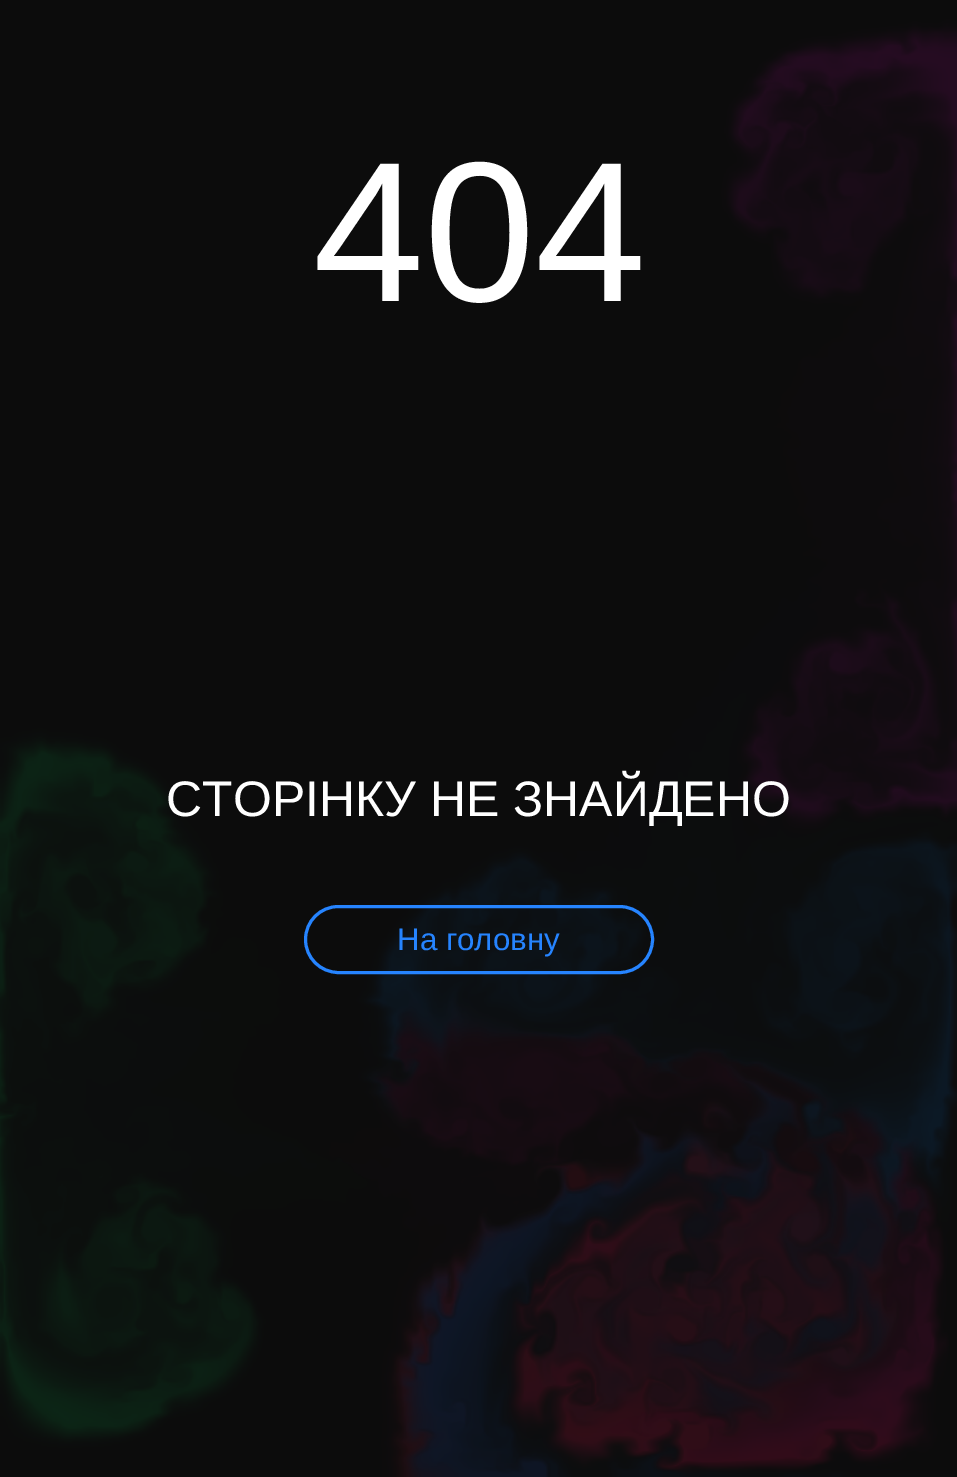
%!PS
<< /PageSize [957 1477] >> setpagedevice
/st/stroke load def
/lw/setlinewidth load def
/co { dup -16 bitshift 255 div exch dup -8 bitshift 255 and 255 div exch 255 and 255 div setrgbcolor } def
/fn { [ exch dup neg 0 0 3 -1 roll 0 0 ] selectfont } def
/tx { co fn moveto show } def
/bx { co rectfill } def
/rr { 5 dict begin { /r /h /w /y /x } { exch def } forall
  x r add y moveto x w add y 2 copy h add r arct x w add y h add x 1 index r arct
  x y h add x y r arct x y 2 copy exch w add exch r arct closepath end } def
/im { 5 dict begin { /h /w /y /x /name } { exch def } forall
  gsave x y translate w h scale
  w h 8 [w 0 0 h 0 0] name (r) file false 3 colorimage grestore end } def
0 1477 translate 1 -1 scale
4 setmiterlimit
0 0 957 1477 16#FFFFFF bx
(media/1.raw) 0 0 957 1477 im
16#2684FF co
3 lw
305.5 906.5 347 66 33 rr st
(404) 313 301 /LiberationSans-Regular 200 16#FFFFFF tx
(CТОРІНКУ НЕ ЗНАЙДЕНО) 166 816 /LiberationSans-Regular 50 16#FFFFFF tx
(На головну) 397 950 /LiberationSans-Regular 31.25 16#2684FF tx
showpage
